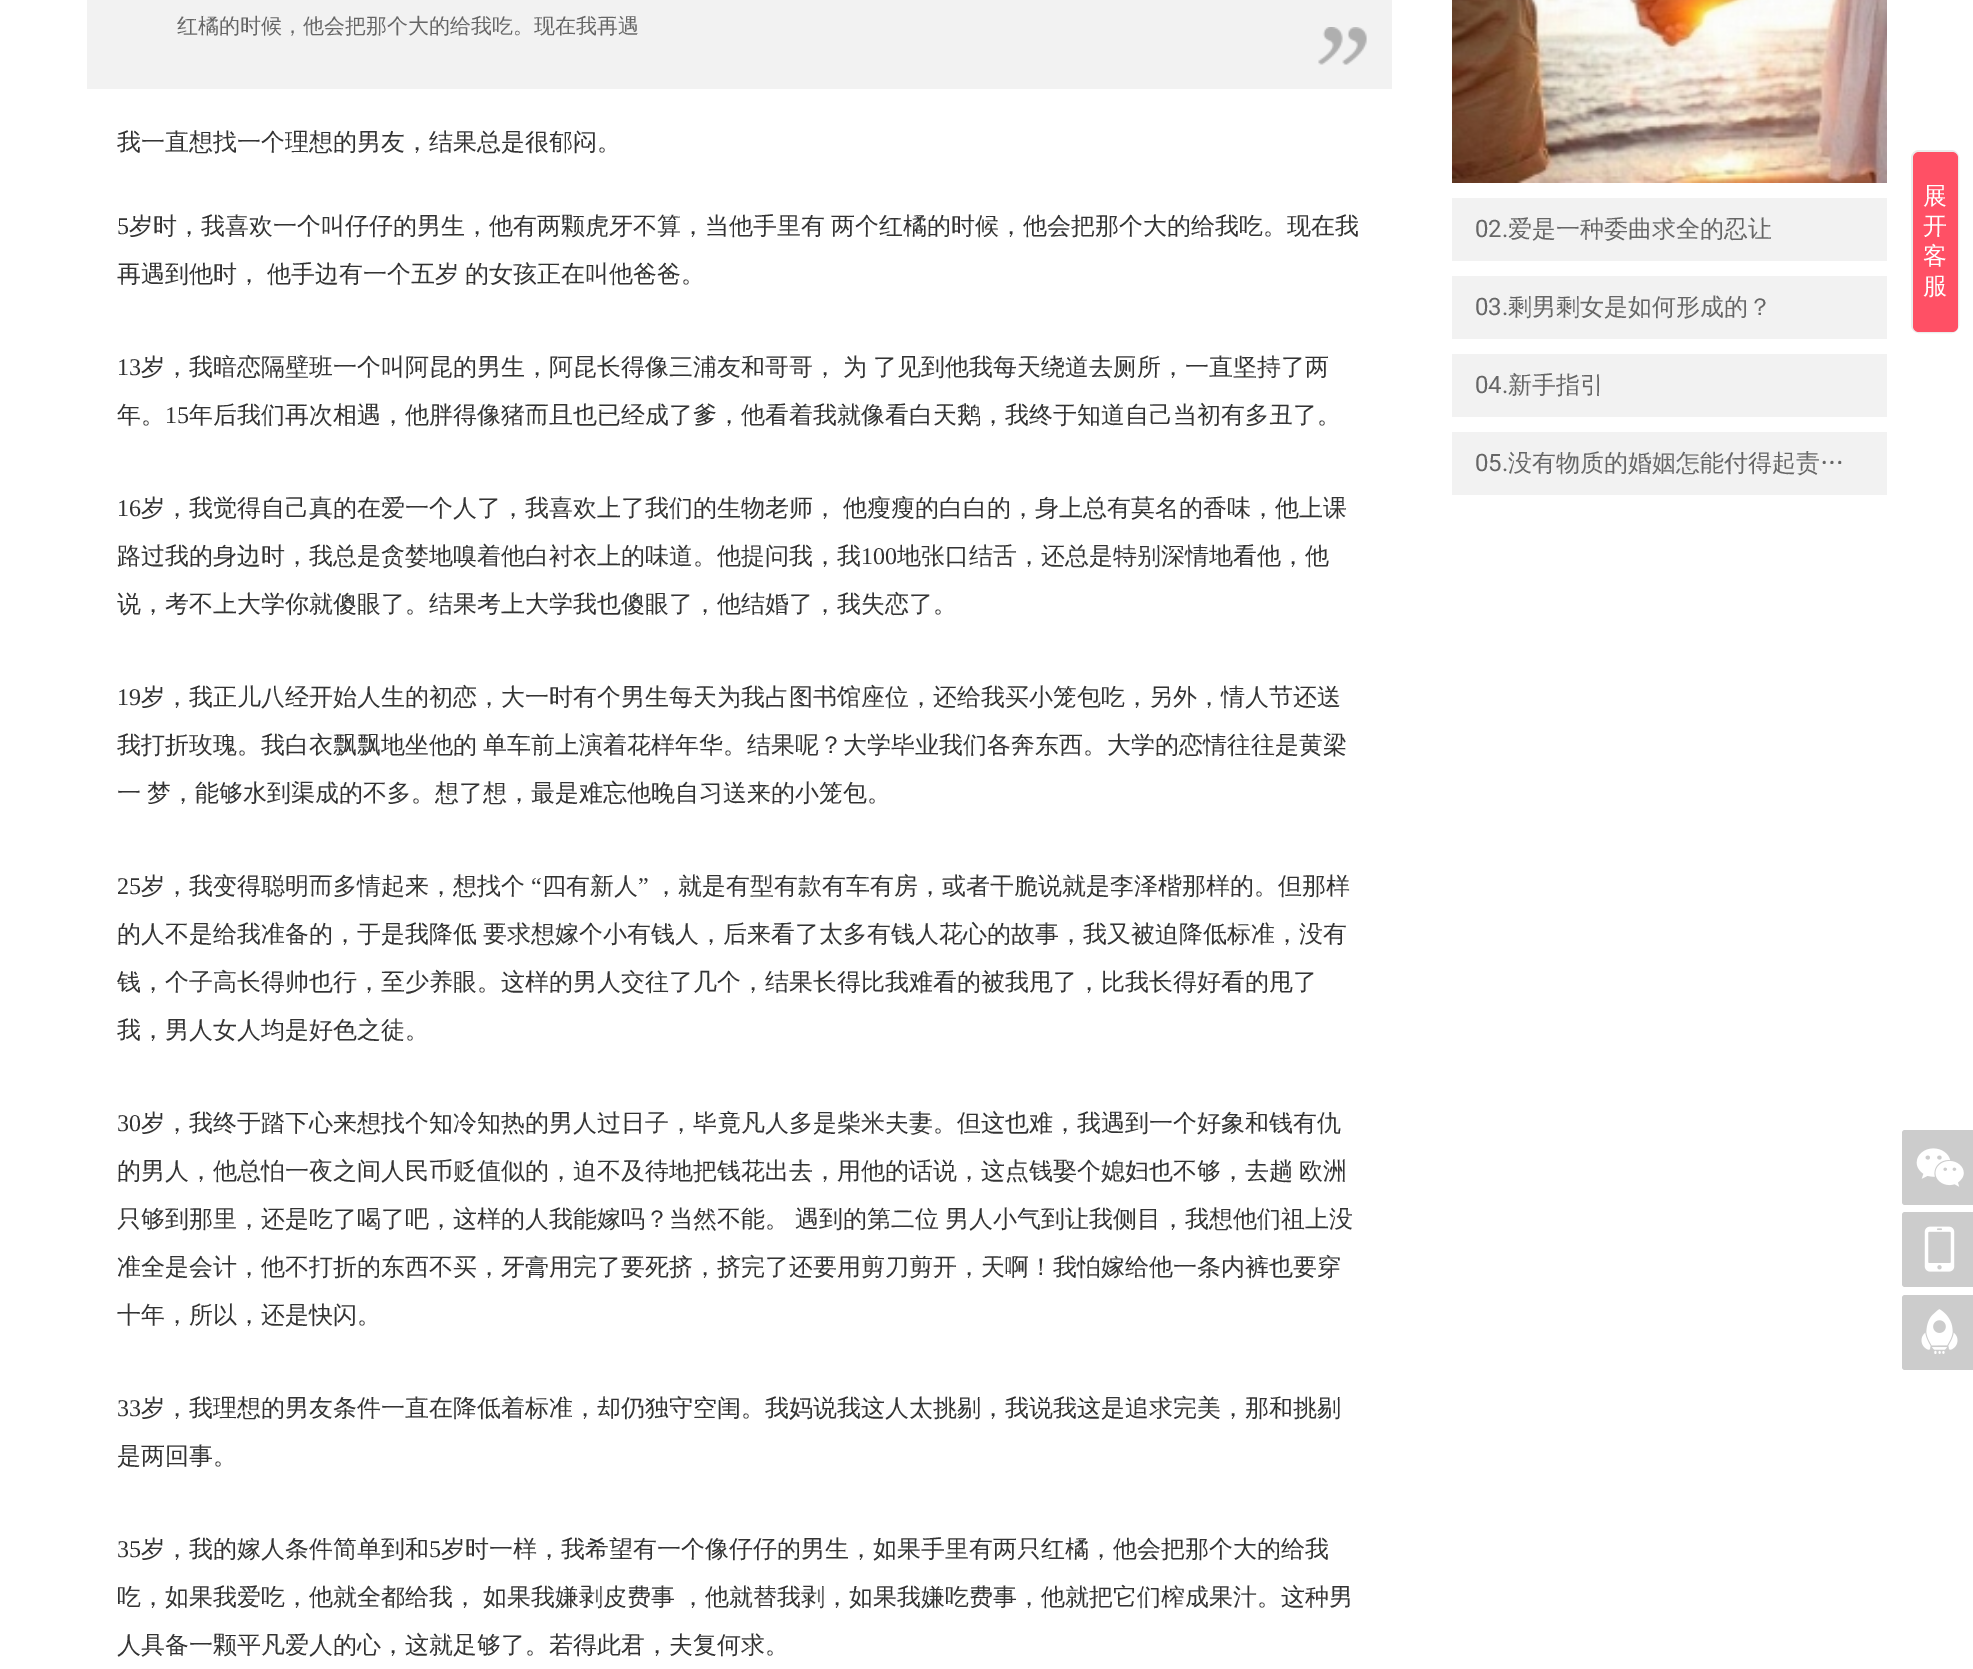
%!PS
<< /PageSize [1973 1669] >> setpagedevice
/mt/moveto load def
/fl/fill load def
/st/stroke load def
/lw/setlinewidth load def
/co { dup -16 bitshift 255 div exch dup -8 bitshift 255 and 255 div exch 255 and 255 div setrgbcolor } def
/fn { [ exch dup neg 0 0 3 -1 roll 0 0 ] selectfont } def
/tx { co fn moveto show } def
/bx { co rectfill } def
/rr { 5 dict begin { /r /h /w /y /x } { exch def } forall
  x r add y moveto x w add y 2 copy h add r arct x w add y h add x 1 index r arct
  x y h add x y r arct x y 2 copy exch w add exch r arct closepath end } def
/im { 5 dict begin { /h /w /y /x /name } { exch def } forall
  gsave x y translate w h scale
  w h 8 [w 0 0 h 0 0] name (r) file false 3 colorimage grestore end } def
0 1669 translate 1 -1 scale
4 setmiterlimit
0 0 1973 1669 16#FFFFFF bx
87 0 1305 89 16#F2F2F2 bx
(media/1.raw) 1318 27 49 38 im
(media/2.raw) 1452 0 435 183 im
1452 198 435 63 16#F2F2F2 bx
1452 276 435 63 16#F2F2F2 bx
1452 354 435 63 16#F2F2F2 bx
1452 432 435 63 16#F2F2F2 bx
16#EBEBEB co
2 lw
1912 151 46 181 7 rr st
16#FF5065 co
1913 152 45 180 6 rr fl
16#CCCCCC co
1902 1130 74 75 3 rr fl
(media/3.raw) 1916 1148 48 39 im
1902 1212 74 75 3 rr fl
(media/4.raw) 1924 1226 31 46 im
1902 1295 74 75 3 rr fl
(media/5.raw) 1921 1309 37 45 im
(红橘的时候，他会把那个大的给我吃。现在我再遇) 177 33 /WenQuanYiZenHei-Medium 21 16#666666 tx
(我一直想找一个理想的男友，结果总是很郁闷。) 117 150 /WenQuanYiZenHei-Medium 24 16#333333 tx
(5) 117 234 /LiberationSerif-Regular 24 16#333333 tx
/WenQuanYiZenHei-Medium 24 fn
129 234 mt -1 0 32 (岁时，我喜欢一个叫仔仔的男生，他有两颗虎牙不算，当他手里有 两个红橘的时候，他会把那个大的给我吃。现在我) widthshow
117 282 mt -1 0 32 (再遇到他时， 他手边有一个五岁 的女孩正在叫他爸爸。) widthshow
(13) 117 375 /LiberationSerif-Regular 24 16#333333 tx
/WenQuanYiZenHei-Medium 24 fn
141 375 mt -1 0 32 (岁，我暗恋隔壁班一个叫阿昆的男生，阿昆长得像三浦友和哥哥， 为 了见到他我每天绕道去厕所，一直坚持了两) widthshow
(年。) 117 423 /WenQuanYiZenHei-Medium 24 16#333333 tx
(15) 165 423 /LiberationSerif-Regular 24 16#333333 tx
(年后我们再次相遇，他胖得像猪而且也已经成了爹，他看着我就像看白天鹅，我终于知道自己当初有多丑了。) 189 423 /WenQuanYiZenHei-Medium 24 16#333333 tx
(16) 117 516 /LiberationSerif-Regular 24 16#333333 tx
/WenQuanYiZenHei-Medium 24 fn
141 516 mt -1 0 32 (岁，我觉得自己真的在爱一个人了，我喜欢上了我们的生物老师， 他瘦瘦的白白的，身上总有莫名的香味，他上课) widthshow
(路过我的身边时，我总是贪婪地嗅着他白衬衣上的味道。他提问我，我) 117 564 /WenQuanYiZenHei-Medium 24 16#333333 tx
(100) 861 564 /LiberationSerif-Regular 24 16#333333 tx
(地张口结舌，还总是特别深情地看他，他) 897 564 /WenQuanYiZenHei-Medium 24 16#333333 tx
(说，考不上大学你就傻眼了。结果考上大学我也傻眼了，他结婚了，我失恋了。) 117 612 /WenQuanYiZenHei-Medium 24 16#333333 tx
(19) 117 705 /LiberationSerif-Regular 24 16#333333 tx
(岁，我正儿八经开始人生的初恋，大一时有个男生每天为我占图书馆座位，还给我买小笼包吃，另外，情人节还送) 141 705 /WenQuanYiZenHei-Medium 24 16#333333 tx
117 753 mt -1 0 32 (我打折玫瑰。我白衣飘飘地坐他的 单车前上演着花样年华。结果呢？大学毕业我们各奔东西。大学的恋情往往是黄梁) widthshow
117 801 mt -1 0 32 (一 梦，能够水到渠成的不多。想了想，最是难忘他晚自习送来的小笼包。) widthshow
(25) 117 894 /LiberationSerif-Regular 24 16#333333 tx
(岁，我变得聪明而多情起来，想找个) 141 894 /WenQuanYiZenHei-Medium 24 16#333333 tx
(“) 531 894 /LiberationSerif-Regular 24 16#333333 tx
(四有新人) 542 894 /WenQuanYiZenHei-Medium 24 16#333333 tx
(”) 638 894 /LiberationSerif-Regular 24 16#333333 tx
(，就是有型有款有车有房，或者干脆说就是李泽楷那样的。但那样) 654 894 /WenQuanYiZenHei-Medium 24 16#333333 tx
117 942 mt -1 0 32 (的人不是给我准备的，于是我降低 要求想嫁个小有钱人，后来看了太多有钱人花心的故事，我又被迫降低标准，没有) widthshow
(钱，个子高长得帅也行，至少养眼。这样的男人交往了几个，结果长得比我难看的被我甩了，比我长得好看的甩了) 117 990 /WenQuanYiZenHei-Medium 24 16#333333 tx
(我，男人女人均是好色之徒。) 117 1038 /WenQuanYiZenHei-Medium 24 16#333333 tx
(30) 117 1131 /LiberationSerif-Regular 24 16#333333 tx
(岁，我终于踏下心来想找个知冷知热的男人过日子，毕竟凡人多是柴米夫妻。但这也难，我遇到一个好象和钱有仇) 141 1131 /WenQuanYiZenHei-Medium 24 16#333333 tx
117 1179 mt -1 0 32 (的男人，他总怕一夜之间人民币贬值似的，迫不及待地把钱花出去，用他的话说，这点钱娶个媳妇也不够，去趟 欧洲) widthshow
117 1227 mt -1 0 32 (只够到那里，还是吃了喝了吧，这样的人我能嫁吗？当然不能。 遇到的第二位 男人小气到让我侧目，我想他们祖上没) widthshow
(准全是会计，他不打折的东西不买，牙膏用完了要死挤，挤完了还要用剪刀剪开，天啊！我怕嫁给他一条内裤也要穿) 117 1275 /WenQuanYiZenHei-Medium 24 16#333333 tx
(十年，所以，还是快闪。) 117 1323 /WenQuanYiZenHei-Medium 24 16#333333 tx
(33) 117 1416 /LiberationSerif-Regular 24 16#333333 tx
(岁，我理想的男友条件一直在降低着标准，却仍独守空闺。我妈说我这人太挑剔，我说我这是追求完美，那和挑剔) 141 1416 /WenQuanYiZenHei-Medium 24 16#333333 tx
(是两回事。) 117 1464 /WenQuanYiZenHei-Medium 24 16#333333 tx
(35) 117 1557 /LiberationSerif-Regular 24 16#333333 tx
(岁，我的嫁人条件简单到和) 141 1557 /WenQuanYiZenHei-Medium 24 16#333333 tx
(5) 429 1557 /LiberationSerif-Regular 24 16#333333 tx
(岁时一样，我希望有一个像仔仔的男生，如果手里有两只红橘，他会把那个大的给我) 441 1557 /WenQuanYiZenHei-Medium 24 16#333333 tx
117 1605 mt -1 0 32 (吃，如果我爱吃，他就全都给我， 如果我嫌剥皮费事 ，他就替我剥，如果我嫌吃费事，他就把它们榨成果汁。这种男) widthshow
(人具备一颗平凡爱人的心，这就足够了。若得此君，夫复何求。) 117 1653 /WenQuanYiZenHei-Medium 24 16#333333 tx
(02.) 1475 237 /Roboto-Regular 24 16#666666 tx
(爱是一种委曲求全的忍让) 1508 237 /WenQuanYiZenHei-Medium 24 16#666666 tx
(03.) 1475 315 /Roboto-Regular 24 16#666666 tx
(剩男剩女是如何形成的？) 1508 315 /WenQuanYiZenHei-Medium 24 16#666666 tx
(04.) 1475 393 /Roboto-Regular 24 16#666666 tx
(新手指引) 1508 393 /WenQuanYiZenHei-Medium 24 16#666666 tx
(05.) 1475 471 /Roboto-Regular 24 16#666666 tx
(没有物质的婚姻怎能付得起责…) 1508 471 /WenQuanYiZenHei-Medium 24 16#666666 tx
(展) 1923 204 /WenQuanYiZenHei-Medium 24 16#FFFFFF tx
(开) 1923 234 /WenQuanYiZenHei-Medium 24 16#FFFFFF tx
(客) 1923 264 /WenQuanYiZenHei-Medium 24 16#FFFFFF tx
(服) 1923 294 /WenQuanYiZenHei-Medium 24 16#FFFFFF tx
showpage
